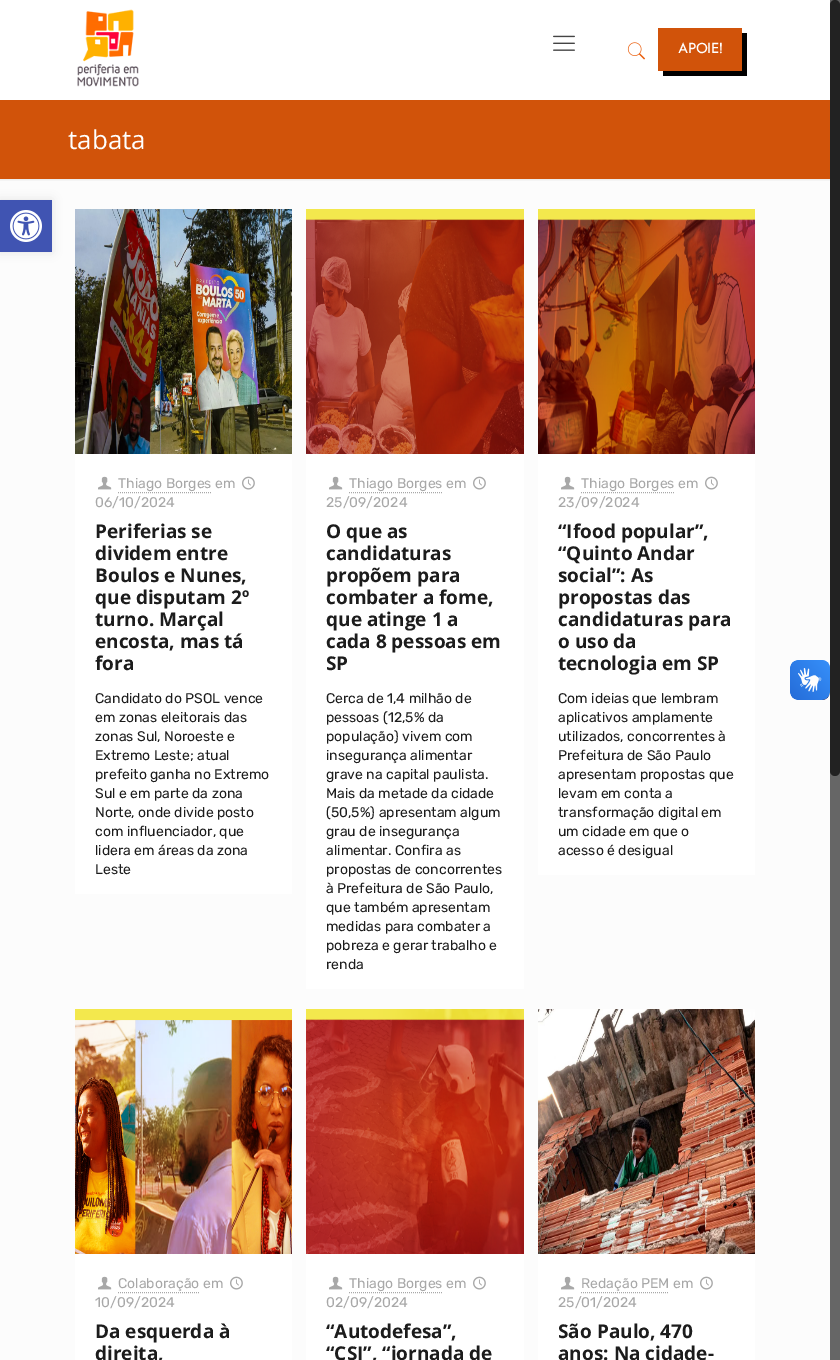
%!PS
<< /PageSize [840 1360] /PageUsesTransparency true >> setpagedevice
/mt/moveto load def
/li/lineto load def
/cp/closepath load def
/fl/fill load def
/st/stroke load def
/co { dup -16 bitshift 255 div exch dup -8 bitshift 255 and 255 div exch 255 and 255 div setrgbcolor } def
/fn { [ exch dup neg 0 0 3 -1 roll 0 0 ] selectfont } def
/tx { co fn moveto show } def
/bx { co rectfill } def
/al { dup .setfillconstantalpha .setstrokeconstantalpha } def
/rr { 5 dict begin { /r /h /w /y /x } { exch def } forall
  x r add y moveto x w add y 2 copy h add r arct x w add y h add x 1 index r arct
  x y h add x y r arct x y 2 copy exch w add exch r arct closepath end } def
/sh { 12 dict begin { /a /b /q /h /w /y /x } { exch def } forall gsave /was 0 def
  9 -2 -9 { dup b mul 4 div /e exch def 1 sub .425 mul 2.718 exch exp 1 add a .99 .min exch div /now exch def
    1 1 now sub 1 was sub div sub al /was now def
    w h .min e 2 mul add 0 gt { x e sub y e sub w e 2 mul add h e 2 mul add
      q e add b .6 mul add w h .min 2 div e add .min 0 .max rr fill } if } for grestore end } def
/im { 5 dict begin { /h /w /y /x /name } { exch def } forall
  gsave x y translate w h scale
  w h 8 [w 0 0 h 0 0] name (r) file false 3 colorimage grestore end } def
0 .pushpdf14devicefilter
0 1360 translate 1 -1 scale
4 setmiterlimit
0 0 840 1360 16#FCFCFC bx
16#000000 co
0 200 52 52 0 5 .1 sh
0 200 52 52 16#4054B2 bx
(media/1.raw) 10 210 32 32 im
0 0 830 100 16#FFFFFF bx
(media/2.raw) 77 9 62 78 im
(media/3.raw) 553 35 22 16 im
(media/4.raw) 627 42 19 18 im
16#000000 co
663 71 mt 663 76 li 747 76 li 747 33 li 742 33 li 742 71 li cp fl
658 28 84 43 16#D1530A bx
0 100 830 79 16#D1530A bx
(media/5.raw) 0 179 830 2 im
75 454 217 440 16#FFFFFF bx
(media/6.raw) 75 209 217 245 im
(media/7.raw) 98 476 14 14 im
16#A8A8A8 co
[1 1] 0 setdash
118 492.5 mt 212 492.5 li st
(media/8.raw) 242 476 13 14 im
306 454 218 535 16#FFFFFF bx
(media/9.raw) 306 209 218 245 im
(media/7.raw) 329 476 14 14 im
16#A8A8A8 co
349 492.5 mt 443 492.5 li st
(media/8.raw) 473 476 13 14 im
538 454 217 421 16#FFFFFF bx
(media/10.raw) 538 209 217 245 im
(media/7.raw) 561 476 14 14 im
16#A8A8A8 co
581 492.5 mt 674 492.5 li st
(media/8.raw) 705 476 13 14 im
75 1254 217 106 16#FFFFFF bx
(media/11.raw) 75 1009 217 245 im
(media/7.raw) 98 1276 14 14 im
16#A8A8A8 co
118 1292.5 mt 199 1292.5 li st
(media/8.raw) 230 1276 13 14 im
306 1254 218 106 16#FFFFFF bx
(media/12.raw) 306 1009 218 245 im
(media/7.raw) 329 1276 14 14 im
16#A8A8A8 co
349 1292.5 mt 443 1292.5 li st
(media/8.raw) 473 1276 13 14 im
538 1254 217 106 16#FFFFFF bx
(media/13.raw) 538 1009 217 245 im
(media/7.raw) 561 1276 14 14 im
16#A8A8A8 co
581 1292.5 mt 669 1292.5 li st
(media/8.raw) 700 1276 13 14 im
830 0 10 1360 16#666666 bx
16#222222 co
830 0 10 776 5 rr fl
(media/14.raw) 790 660 40 40 im
(media/15.raw) 790 660 40 40 im
(APOIE!) 678 53 /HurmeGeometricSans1-Bold 14 16#FFFFFF tx
(tabata) 68 149 /OpenSans-Regular 26 16#FFFFFF tx
(Thiago Borges em) 118 488 /Rubik-Regular 14 16#A8A8A8 tx
(06/10/2024) 95 507 /Rubik-Regular 14 16#A8A8A8 tx
(Periferias se) 95 538 /OpenSans-Bold 19 16#1C1C1C tx
(dividem entre) 95 560 /OpenSans-Bold 19 16#1C1C1C tx
(Boulos e Nunes,) 95 582 /OpenSans-Bold 19 16#1C1C1C tx
(que disputam 2º) 95 604 /OpenSans-Bold 19 16#1C1C1C tx
(turno. Marçal) 95 626 /OpenSans-Bold 19 16#1C1C1C tx
(encosta, mas tá) 95 648 /OpenSans-Bold 19 16#1C1C1C tx
(fora) 95 670 /OpenSans-Bold 19 16#1C1C1C tx
(Candidato do PSOL vence) 95 703 /Rubik-Regular 14 16#1C1C1C tx
(em zonas eleitorais das) 95 722 /Rubik-Regular 14 16#1C1C1C tx
(zonas Sul, Noroeste e) 95 741 /Rubik-Regular 14 16#1C1C1C tx
(Extremo Leste; atual) 95 760 /Rubik-Regular 14 16#1C1C1C tx
(prefeito ganha no Extremo) 95 779 /Rubik-Regular 14 16#1C1C1C tx
(Sul e em parte da zona) 95 798 /Rubik-Regular 14 16#1C1C1C tx
(Norte, onde divide posto) 95 817 /Rubik-Regular 14 16#1C1C1C tx
(com influenciador, que) 95 836 /Rubik-Regular 14 16#1C1C1C tx
(lidera em áreas da zona) 95 855 /Rubik-Regular 14 16#1C1C1C tx
(Leste) 95 874 /Rubik-Regular 14 16#1C1C1C tx
(Thiago Borges em) 349 488 /Rubik-Regular 14 16#A8A8A8 tx
(25/09/2024) 326 507 /Rubik-Regular 14 16#A8A8A8 tx
(O que as) 326 538 /OpenSans-Bold 19 16#1C1C1C tx
(candidaturas) 326 560 /OpenSans-Bold 19 16#1C1C1C tx
(propõem para) 326 582 /OpenSans-Bold 19 16#1C1C1C tx
(combater a fome,) 326 604 /OpenSans-Bold 19 16#1C1C1C tx
(que atinge 1 a) 326 626 /OpenSans-Bold 19 16#1C1C1C tx
(cada 8 pessoas em) 326 648 /OpenSans-Bold 19 16#1C1C1C tx
(SP) 326 670 /OpenSans-Bold 19 16#1C1C1C tx
(Cerca de 1,4 milhão de) 326 703 /Rubik-Regular 14 16#1C1C1C tx
(pessoas \(12,5% da) 326 722 /Rubik-Regular 14 16#1C1C1C tx
(população\) vivem com) 326 741 /Rubik-Regular 14 16#1C1C1C tx
(insegurança alimentar) 326 760 /Rubik-Regular 14 16#1C1C1C tx
(grave na capital paulista.) 326 779 /Rubik-Regular 14 16#1C1C1C tx
(Mais da metade da cidade) 326 798 /Rubik-Regular 14 16#1C1C1C tx
(\(50,5%\) apresentam algum) 326 817 /Rubik-Regular 14 16#1C1C1C tx
(grau de insegurança) 326 836 /Rubik-Regular 14 16#1C1C1C tx
(alimentar. Confira as) 326 855 /Rubik-Regular 14 16#1C1C1C tx
(propostas de concorrentes) 326 874 /Rubik-Regular 14 16#1C1C1C tx
(à Prefeitura de São Paulo,) 326 893 /Rubik-Regular 14 16#1C1C1C tx
(que também apresentam) 326 912 /Rubik-Regular 14 16#1C1C1C tx
(medidas para combater a) 326 931 /Rubik-Regular 14 16#1C1C1C tx
(pobreza e gerar trabalho e) 326 950 /Rubik-Regular 14 16#1C1C1C tx
(renda) 326 969 /Rubik-Regular 14 16#1C1C1C tx
(Thiago Borges em) 581 488 /Rubik-Regular 14 16#A8A8A8 tx
(23/09/2024) 558 507 /Rubik-Regular 14 16#A8A8A8 tx
(“Ifood popular”,) 558 538 /OpenSans-Bold 19 16#1C1C1C tx
(“Quinto Andar) 558 560 /OpenSans-Bold 19 16#1C1C1C tx
(social”: As) 558 582 /OpenSans-Bold 19 16#1C1C1C tx
(propostas das) 558 604 /OpenSans-Bold 19 16#1C1C1C tx
(candidaturas para) 558 626 /OpenSans-Bold 19 16#1C1C1C tx
(o uso da) 558 648 /OpenSans-Bold 19 16#1C1C1C tx
(tecnologia em SP) 558 670 /OpenSans-Bold 19 16#1C1C1C tx
(Com ideias que lembram) 558 703 /Rubik-Regular 14 16#1C1C1C tx
(aplicativos amplamente) 558 722 /Rubik-Regular 14 16#1C1C1C tx
(utilizados, concorrentes à) 558 741 /Rubik-Regular 14 16#1C1C1C tx
(Prefeitura de São Paulo) 558 760 /Rubik-Regular 14 16#1C1C1C tx
(apresentam propostas que) 558 779 /Rubik-Regular 14 16#1C1C1C tx
(levam em conta a) 558 798 /Rubik-Regular 14 16#1C1C1C tx
(transformação digital em) 558 817 /Rubik-Regular 14 16#1C1C1C tx
(um cidade em que o) 558 836 /Rubik-Regular 14 16#1C1C1C tx
(acesso é desigual) 558 855 /Rubik-Regular 14 16#1C1C1C tx
(Colaboração em) 118 1288 /Rubik-Regular 14 16#A8A8A8 tx
(10/09/2024) 95 1307 /Rubik-Regular 14 16#A8A8A8 tx
(Da esquerda à) 95 1338 /OpenSans-Bold 19 16#1C1C1C tx
(direita,) 95 1360 /OpenSans-Bold 19 16#1C1C1C tx
(Thiago Borges em) 349 1288 /Rubik-Regular 14 16#A8A8A8 tx
(02/09/2024) 326 1307 /Rubik-Regular 14 16#A8A8A8 tx
(“Autodefesa”,) 326 1338 /OpenSans-Bold 19 16#1C1C1C tx
(“CSI”, “jornada de) 326 1360 /OpenSans-Bold 19 16#1C1C1C tx
(Redação PEM em) 581 1288 /Rubik-Regular 14 16#A8A8A8 tx
(25/01/2024) 558 1307 /Rubik-Regular 14 16#A8A8A8 tx
(São Paulo, 470) 558 1338 /OpenSans-Bold 19 16#1C1C1C tx
(anos: Na cidade-) 558 1360 /OpenSans-Bold 19 16#1C1C1C tx
.poppdf14devicefilter showpage
